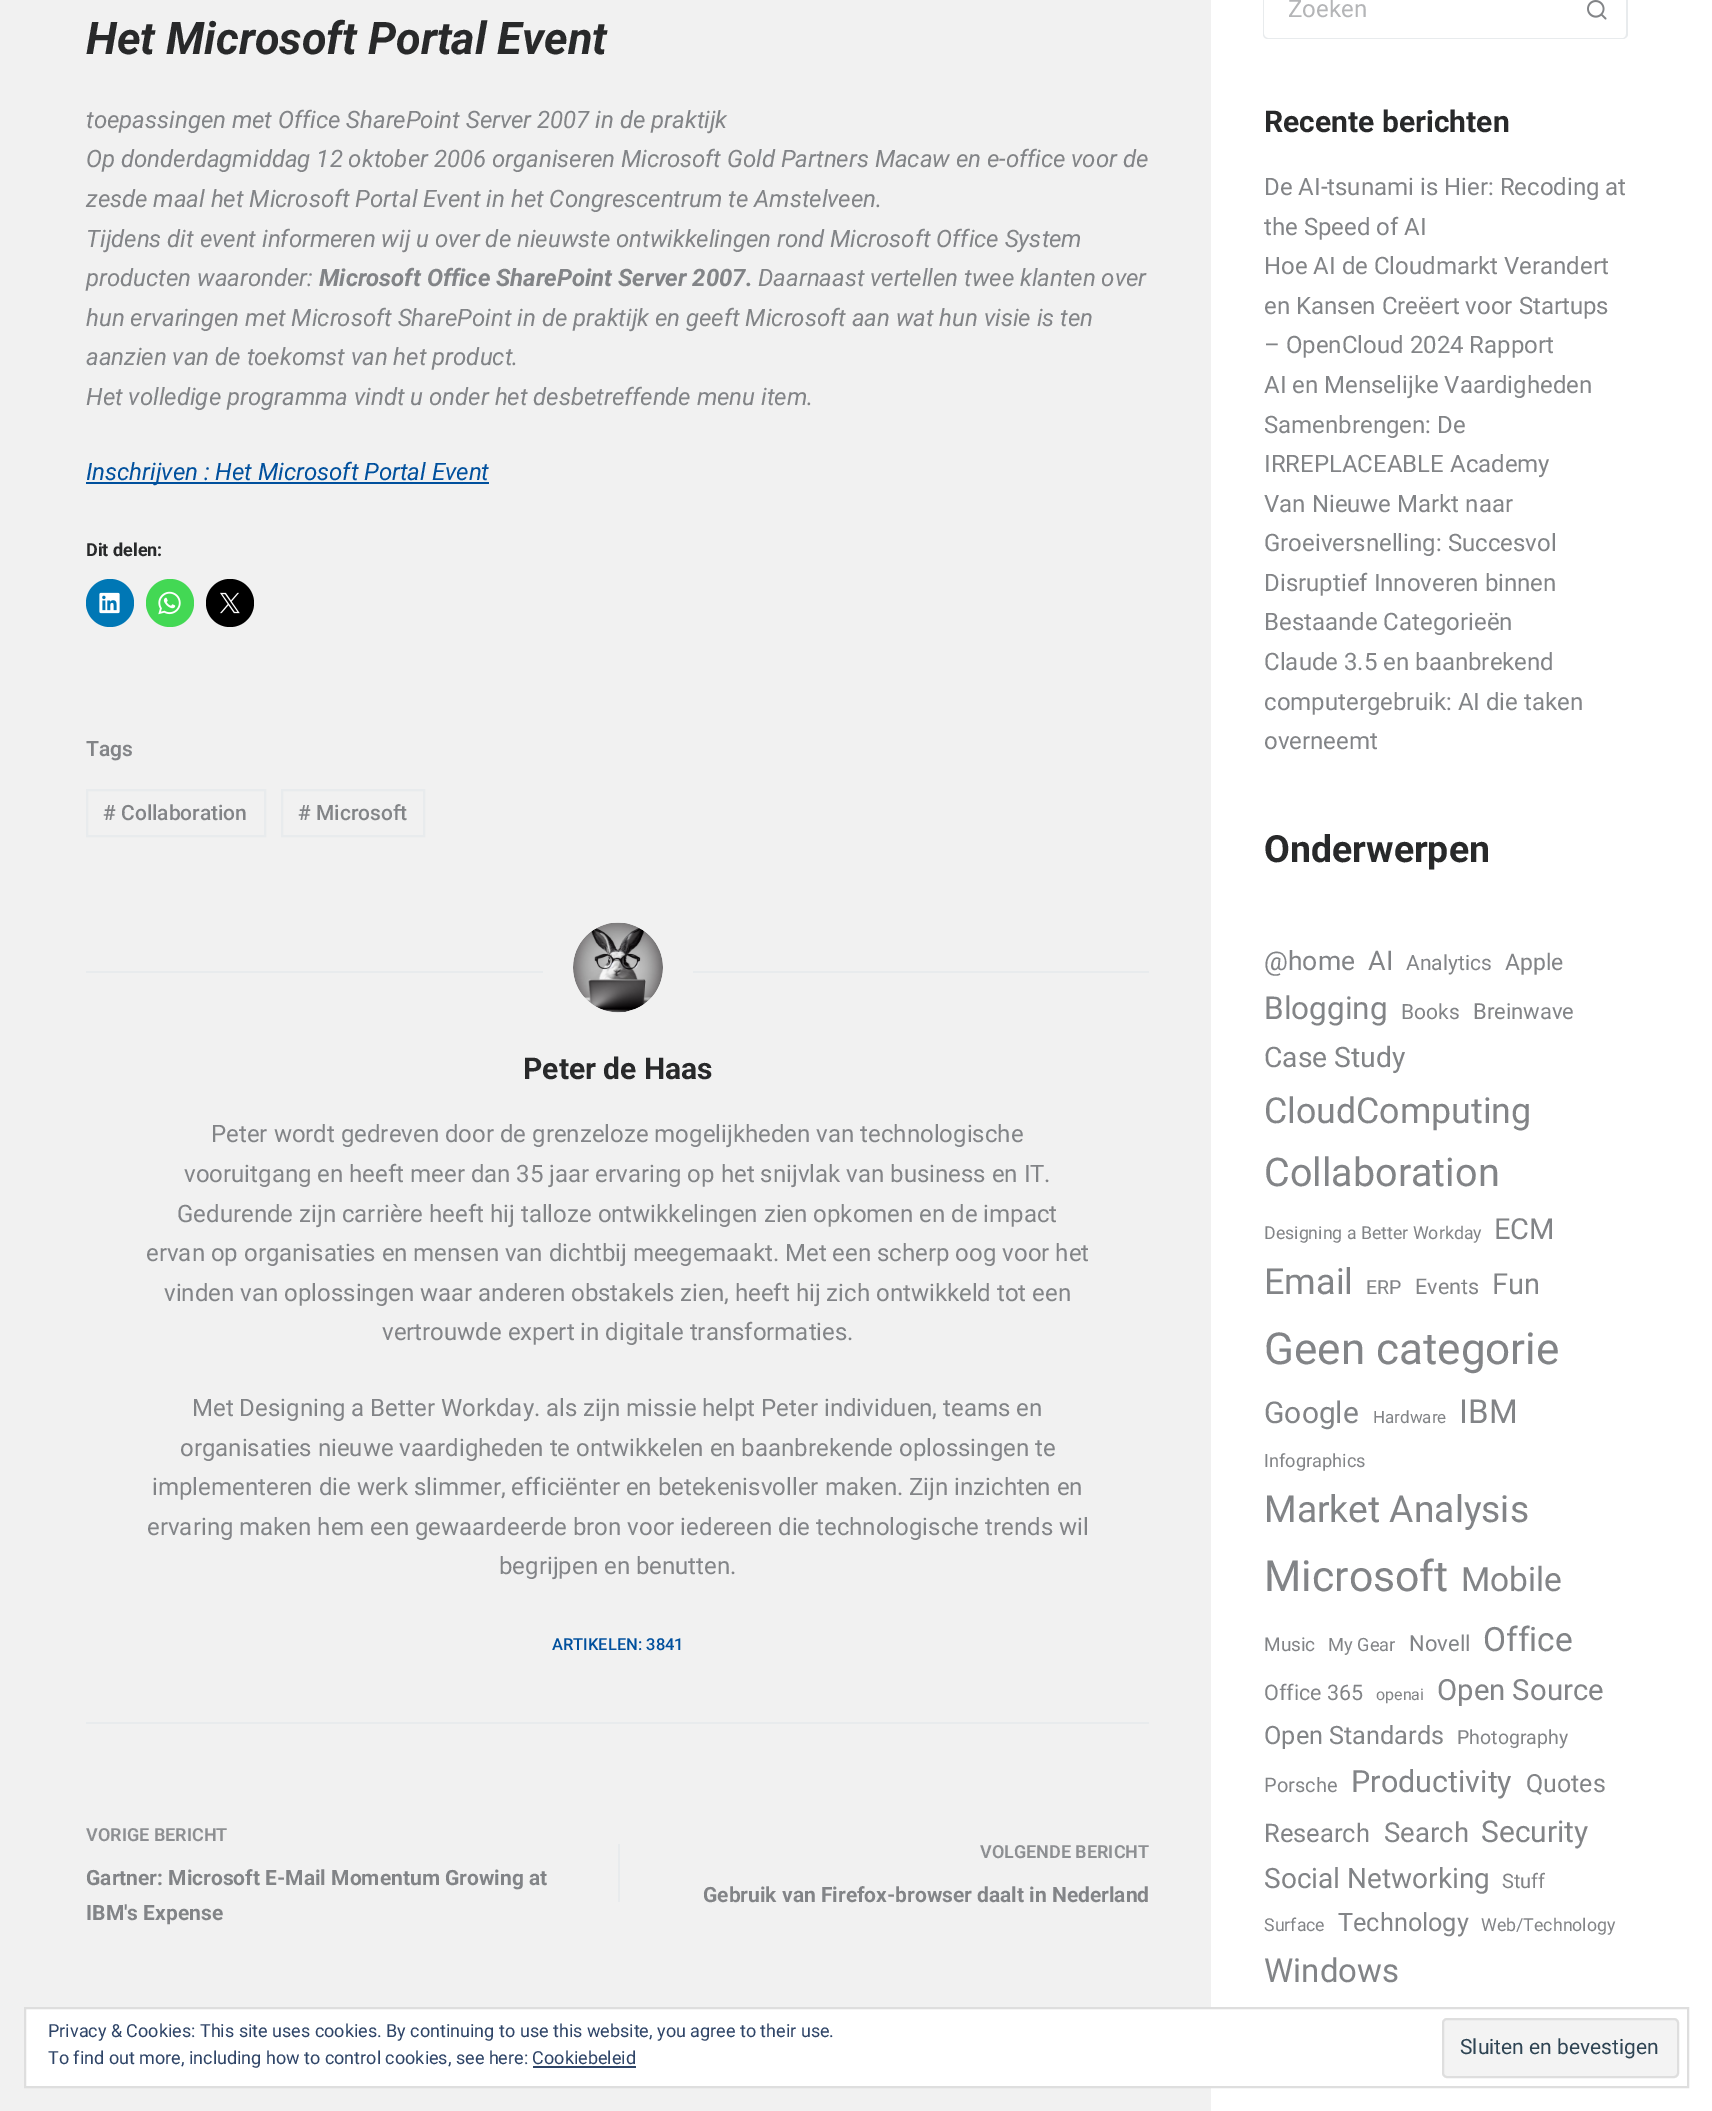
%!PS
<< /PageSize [1712 2111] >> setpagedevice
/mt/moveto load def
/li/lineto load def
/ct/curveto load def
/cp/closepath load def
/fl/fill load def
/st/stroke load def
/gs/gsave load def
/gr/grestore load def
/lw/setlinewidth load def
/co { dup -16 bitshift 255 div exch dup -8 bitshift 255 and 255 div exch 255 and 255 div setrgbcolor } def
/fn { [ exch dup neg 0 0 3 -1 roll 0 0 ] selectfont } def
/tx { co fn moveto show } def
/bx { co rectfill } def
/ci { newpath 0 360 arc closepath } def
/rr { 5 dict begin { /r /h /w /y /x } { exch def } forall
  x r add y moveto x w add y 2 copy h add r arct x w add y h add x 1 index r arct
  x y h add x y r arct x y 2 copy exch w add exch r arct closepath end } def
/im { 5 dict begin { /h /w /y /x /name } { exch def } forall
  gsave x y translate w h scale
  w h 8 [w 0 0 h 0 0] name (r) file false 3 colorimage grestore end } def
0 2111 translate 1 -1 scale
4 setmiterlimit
0 0 1712 2111 16#F1F1F1 bx
86 482 403 2 16#00509D bx
16#0077B5 co
110 603 24 ci fl
(media/1.raw) 99 592 21 22 im
16#43D854 co
170 603 24 ci fl
(media/2.raw) 158 591 23 24 im
16#000000 co
230 603 24 ci fl
(media/3.raw) 220 592 20 22 im
16#E8EBED co
2 lw
87 790 178 46 rectstroke
282 790 142 46 rectstroke
86 1722 1063 2 16#E8EBED bx
86 971 457 2 16#E8EBED bx
(media/4.raw) 573 922 90 91 im
693 971 456 2 16#E8EBED bx
618 1844 2 58 16#E8EBED bx
1211 0 501 2111 16#FFFFFF bx
16#E8EBED co
1268 -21 mt 1568 -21 li 1568 39 li 1268 39 li 1265 39 1263 37 1263 34 ct 1263 -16 li 1263 -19 1265 -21 1268 -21 ct cp 1268 -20 mt 1568 -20 li 1568 38 li 1268 38 li 1266 38 1264 36 1264 34 ct 1264 -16 li 1264 -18 1266 -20 1268 -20 ct cp eofill
1568 -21 mt 1623 -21 li 1625 -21 1628 -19 1628 -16 ct 1628 34 li 1628 37 1625 39 1623 39 ct 1568 39 li cp 1568 -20 mt 1623 -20 li 1625 -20 1626 -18 1626 -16 ct 1626 34 li 1626 36 1625 38 1623 38 ct 1568 38 li cp eofill
(media/5.raw) 1587 0 20 20 im
26 2009 1185 77 16#FFFFFF bx
16#DEDEDE co
25 2008 1663 79 rectstroke
16#F3F3F3 co
1443 2019 235 58 4 rr gs fl gr
16#DEDEDE co
st
533 2066 103 2 16#2E4467 bx
(Het Microsoft Portal Event) 86 54 /Roboto-BoldItalic 45 16#28292A tx
(toepassingen met Office SharePoint Server 2007 in de praktijk) 86 128 /Roboto-Italic 24 16#828487 tx
(Op donderdagmiddag 12 oktober 2006 organiseren Microsoft Gold Partners Macaw en e-office voor de) 86 167 /Roboto-Italic 24 16#828487 tx
(zesde maal het Microsoft Portal Event in het Congrescentrum te Amstelveen.) 86 207 /Roboto-Italic 24 16#828487 tx
(Tijdens dit event informeren wij u over de nieuwste ontwikkelingen rond Microsoft Office System) 86 247 /Roboto-Italic 24 16#828487 tx
(producten waaronder:) 86 286 /Roboto-Italic 24 16#828487 tx
(Microsoft Office SharePoint Server 2007.) 319 286 /Roboto-BoldItalic 24 16#828487 tx
(Daarnaast vertellen twee klanten over) 758 286 /Roboto-Italic 24 16#828487 tx
(hun ervaringen met Microsoft SharePoint in de praktijk en geeft Microsoft aan wat hun visie is ten) 86 326 /Roboto-Italic 24 16#828487 tx
(aanzien van de toekomst van het product.) 86 365 /Roboto-Italic 24 16#828487 tx
(Het volledige programma vindt u onder het desbetreffende menu item.) 86 405 /Roboto-Italic 24 16#828487 tx
(Inschrijven : Het Microsoft Portal Event) 86 480 /Roboto-Italic 24 16#00509D tx
(Dit delen:) 86 556 /Roboto-Bold 18 16#28292A tx
(Tags) 86 756 /Roboto-SemiBold 21 16#828487 tx
(# Collaboration) 103 820 /Roboto-Medium 21 16#828487 tx
(# Microsoft) 298 820 /Roboto-Medium 21 16#828487 tx
(Peter de Haas) 523 1079 /Roboto-Bold 30 16#28292A tx
(Peter wordt gedreven door de grenzeloze mogelijkheden van technologische) 211 1142 /Roboto-Regular 24 16#828487 tx
(vooruitgang en heeft meer dan 35 jaar ervaring op het snijvlak van business en IT.) 184 1182 /Roboto-Regular 24 16#828487 tx
(Gedurende zijn carrière heeft hij talloze ontwikkelingen zien opkomen en de impact) 177 1222 /Roboto-Regular 24 16#828487 tx
(ervan op organisaties en mensen van dichtbij meegemaakt. Met een scherp oog voor het) 146 1261 /Roboto-Regular 24 16#828487 tx
(vinden van oplossingen waar anderen obstakels zien, heeft hij zich ontwikkeld tot een) 164 1301 /Roboto-Regular 24 16#828487 tx
(vertrouwde expert in digitale transformaties.) 382 1340 /Roboto-Regular 24 16#828487 tx
(Met Designing a Better Workday. als zijn missie helpt Peter individuen, teams en) 192 1416 /Roboto-Regular 24 16#828487 tx
(organisaties nieuwe vaardigheden te ontwikkelen en baanbrekende oplossingen te) 180 1456 /Roboto-Regular 24 16#828487 tx
(implementeren die werk slimmer, efficiënter en betekenisvoller maken. Zijn inzichten en) 152 1495 /Roboto-Regular 24 16#828487 tx
(ervaring maken hem een gewaardeerde bron voor iedereen die technologische trends wil) 147 1535 /Roboto-Regular 24 16#828487 tx
(begrijpen en benutten.) 499 1574 /Roboto-Regular 24 16#828487 tx
(ARTIKELEN: 3841) 552 1650 /Roboto-Medium 16.5 16#00509D tx
(VORIGE BERICHT) 86 1841 /Roboto-SemiBold 18 16#8D8F92 tx
(Gartner: Microsoft E-Mail Momentum Growing at) 86 1885 /Roboto-Bold 21 16#828487 tx
(IBM's Expense) 86 1920 /Roboto-Bold 21 16#828487 tx
(VOLGENDE BERICHT) 980 1858 /Roboto-SemiBold 18 16#8D8F92 tx
(Gebruik van Firefox-browser daalt in Nederland) 703 1902 /Roboto-Bold 21 16#828487 tx
(Zoeken) 1288 17 /Roboto-Regular 24 16#B4B5B7 tx
(Recente berichten) 1264 132 /Roboto-Bold 30 16#28292A tx
(De AI-tsunami is Hier: Recoding at) 1264 195 /Roboto-Regular 24 16#828487 tx
(the Speed of AI) 1264 235 /Roboto-Regular 24 16#828487 tx
(Hoe AI de Cloudmarkt Verandert) 1264 274 /Roboto-Regular 24 16#828487 tx
(en Kansen Creëert voor Startups) 1264 314 /Roboto-Regular 24 16#828487 tx
(– OpenCloud 2024 Rapport) 1264 353 /Roboto-Regular 24 16#828487 tx
(AI en Menselijke Vaardigheden) 1264 393 /Roboto-Regular 24 16#828487 tx
(Samenbrengen: De) 1264 433 /Roboto-Regular 24 16#828487 tx
(IRREPLACEABLE Academy) 1264 472 /Roboto-Regular 24 16#828487 tx
(Van Nieuwe Markt naar) 1264 512 /Roboto-Regular 24 16#828487 tx
(Groeiversnelling: Succesvol) 1264 551 /Roboto-Regular 24 16#828487 tx
(Disruptief Innoveren binnen) 1264 591 /Roboto-Regular 24 16#828487 tx
(Bestaande Categorieën) 1264 630 /Roboto-Regular 24 16#828487 tx
(Claude 3.5 en baanbrekend) 1264 670 /Roboto-Regular 24 16#828487 tx
(computergebruik: AI die taken) 1264 710 /Roboto-Regular 24 16#828487 tx
(overneemt) 1264 749 /Roboto-Regular 24 16#828487 tx
(Onderwerpen) 1264 862 /Roboto-Bold 37.5 16#28292A tx
(@home) 1264 970 /Roboto-Regular 26.5 16#828487 tx
(AI) 1368 970 /Roboto-Regular 27 16#828487 tx
(Analytics) 1406 970 /Roboto-Regular 21 16#828487 tx
(Apple) 1505 970 /Roboto-Regular 23 16#828487 tx
(Blogging) 1264 1019 /Roboto-Regular 31.5 16#828487 tx
(Books) 1401 1019 /Roboto-Regular 21 16#828487 tx
(Breinwave) 1473 1019 /Roboto-Regular 22 16#828487 tx
(Case Study) 1264 1067 /Roboto-Regular 28.25 16#828487 tx
(CloudComputing) 1264 1123 /Roboto-Regular 35.75 16#828487 tx
(Collaboration) 1264 1186 /Roboto-Regular 39.5 16#828487 tx
(Designing a Better Workday) 1264 1239 /Roboto-Regular 17.75 16#828487 tx
(ECM) 1494 1239 /Roboto-Regular 29 16#828487 tx
(Email) 1264 1294 /Roboto-Regular 36 16#828487 tx
(ERP) 1366 1294 /Roboto-Regular 19.5 16#828487 tx
(Events) 1415 1294 /Roboto-Regular 21.5 16#828487 tx
(Fun) 1492 1294 /Roboto-Regular 29 16#828487 tx
(Geen categorie) 1264 1364 /Roboto-Regular 44 16#828487 tx
(Google) 1264 1423 /Roboto-Regular 30 16#828487 tx
(Hardware) 1373 1423 /Roboto-Regular 17 16#828487 tx
(IBM) 1459 1423 /Roboto-Regular 33 16#828487 tx
(Infographics) 1264 1467 /Roboto-Regular 18.25 16#828487 tx
(Market Analysis) 1264 1522 /Roboto-Regular 37.25 16#828487 tx
(Microsoft) 1264 1591 /Roboto-Regular 42.75 16#828487 tx
(Mobile) 1461 1591 /Roboto-Regular 33.5 16#828487 tx
(Music) 1264 1651 /Roboto-Regular 19 16#828487 tx
(My Gear) 1328 1651 /Roboto-Regular 18.25 16#828487 tx
(Novell) 1409 1651 /Roboto-Regular 22 16#828487 tx
(Office) 1483 1651 /Roboto-Regular 33.5 16#828487 tx
(Office 365) 1264 1700 /Roboto-Regular 21.5 16#828487 tx
(openai) 1376 1700 /Roboto-Regular 16 16#828487 tx
(Open Source) 1437 1700 /Roboto-Regular 29.25 16#828487 tx
(Open Standards) 1264 1744 /Roboto-Regular 25.25 16#828487 tx
(Photography) 1457 1744 /Roboto-Regular 19.5 16#828487 tx
(Porsche) 1264 1792 /Roboto-Regular 20 16#828487 tx
(Productivity) 1351 1792 /Roboto-Regular 30.5 16#828487 tx
(Quotes) 1526 1792 /Roboto-Regular 25 16#828487 tx
(Research) 1264 1842 /Roboto-Regular 25.5 16#828487 tx
(Search) 1384 1842 /Roboto-Regular 27.5 16#828487 tx
(Security) 1481 1842 /Roboto-Regular 30 16#828487 tx
(Social Networking) 1264 1888 /Roboto-Regular 28 16#828487 tx
(Stuff) 1502 1888 /Roboto-Regular 20 16#828487 tx
(Surface) 1264 1931 /Roboto-Regular 17.75 16#828487 tx
(Technology) 1338 1931 /Roboto-Regular 25.25 16#828487 tx
(Web/Technology) 1481 1931 /Roboto-Regular 17.75 16#828487 tx
(Windows) 1264 1982 /Roboto-Regular 33 16#828487 tx
(Privacy & Cookies: This site uses cookies. By continuing to use this website, you agree to their use.) 48 2037 /Roboto-Regular 18 16#2E4467 tx
(To find out more, including how to control cookies, see here: Cookiebeleid) 48 2064 /Roboto-Regular 18 16#2E4467 tx
(Sluiten en bevestigen) 1460 2054 /Roboto-Regular 21 16#2E4453 tx
showpage
